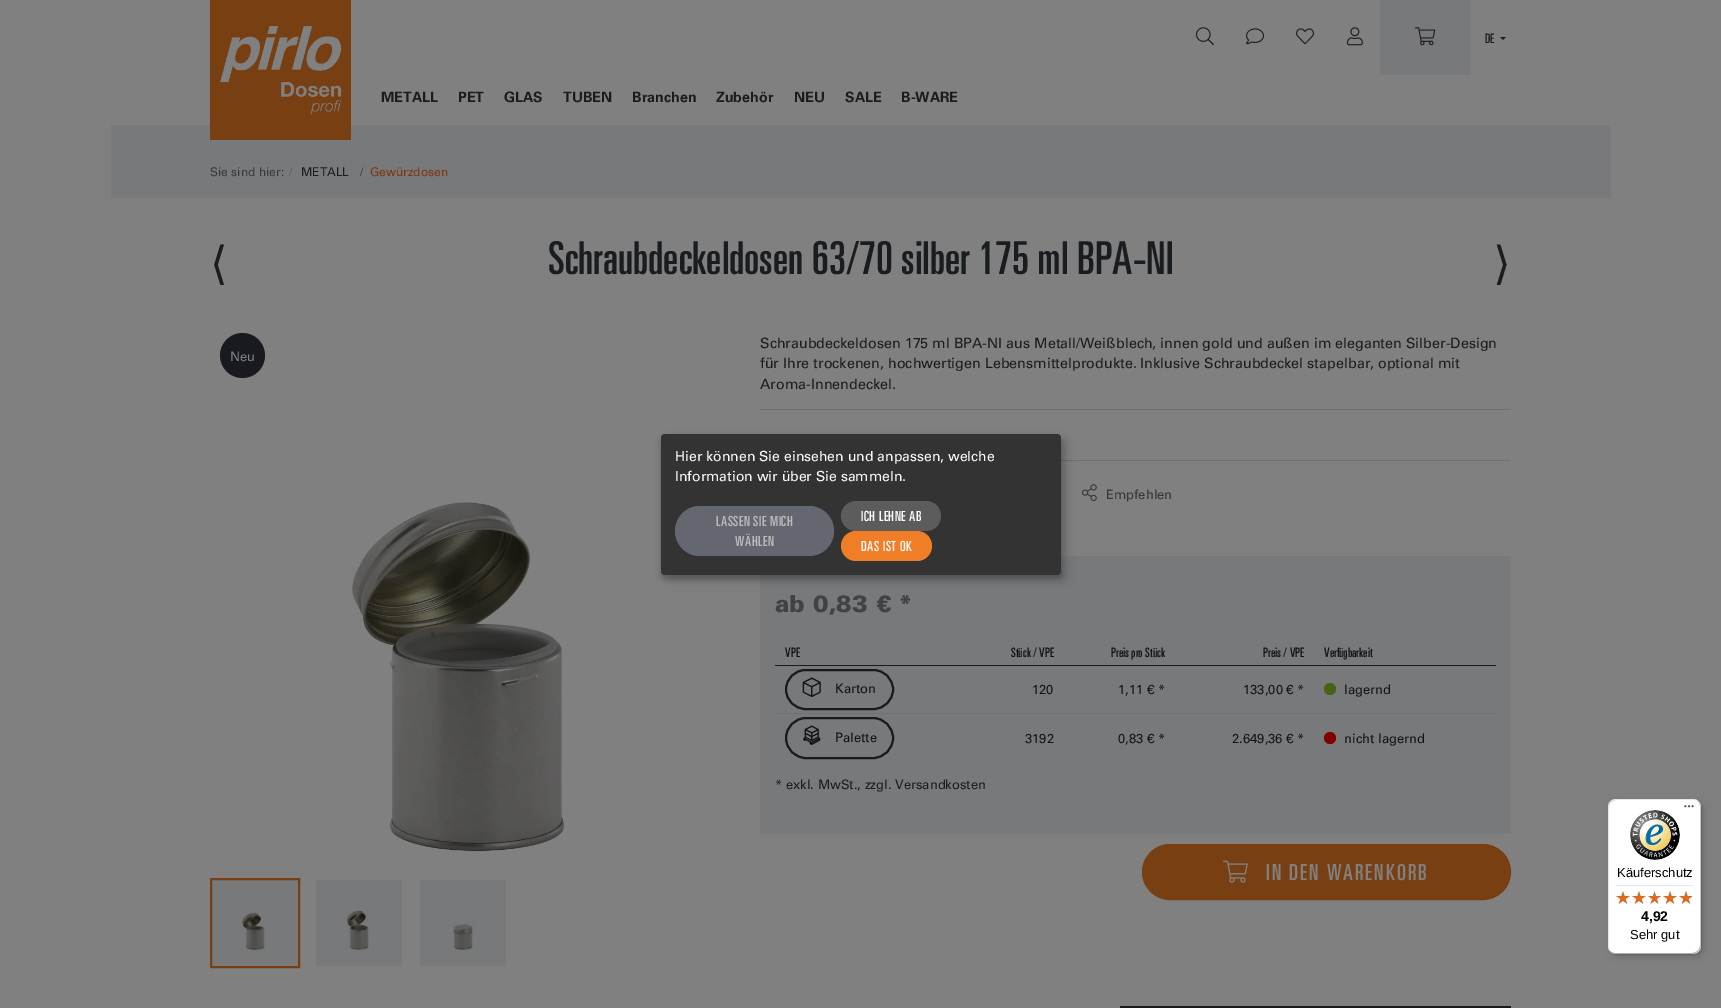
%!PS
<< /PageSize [1721 1008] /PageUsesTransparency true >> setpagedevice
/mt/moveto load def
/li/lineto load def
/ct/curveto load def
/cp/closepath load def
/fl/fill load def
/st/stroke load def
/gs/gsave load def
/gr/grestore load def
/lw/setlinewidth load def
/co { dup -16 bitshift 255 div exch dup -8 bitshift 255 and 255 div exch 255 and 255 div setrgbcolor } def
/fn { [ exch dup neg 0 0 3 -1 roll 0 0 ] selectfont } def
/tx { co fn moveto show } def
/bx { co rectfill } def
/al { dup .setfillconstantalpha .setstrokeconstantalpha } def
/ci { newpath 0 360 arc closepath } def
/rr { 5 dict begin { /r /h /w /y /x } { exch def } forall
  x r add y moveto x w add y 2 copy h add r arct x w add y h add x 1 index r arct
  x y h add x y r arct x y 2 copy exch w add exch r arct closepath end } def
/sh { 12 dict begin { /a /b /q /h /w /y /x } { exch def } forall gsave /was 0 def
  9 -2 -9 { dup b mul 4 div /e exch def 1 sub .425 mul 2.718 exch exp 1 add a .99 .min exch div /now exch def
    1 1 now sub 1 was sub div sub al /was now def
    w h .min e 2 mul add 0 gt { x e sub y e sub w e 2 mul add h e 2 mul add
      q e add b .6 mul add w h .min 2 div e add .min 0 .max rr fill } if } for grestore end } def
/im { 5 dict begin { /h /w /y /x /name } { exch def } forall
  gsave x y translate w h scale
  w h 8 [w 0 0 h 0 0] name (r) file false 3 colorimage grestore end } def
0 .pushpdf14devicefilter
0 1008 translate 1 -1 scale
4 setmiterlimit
0 0 1721 1008 16#808080 bx
111 125 1500 73 16#78797B bx
(media/1.raw) 210 0 141 140 im
(media/2.raw) 1196 27 18 19 im
(media/3.raw) 1246 28 18 17 im
(media/4.raw) 1296 28 18 17 im
(media/5.raw) 1347 27 16 19 im
1380 0 91 75 16#78797B bx
(media/6.raw) 1415 27 21 19 im
16#1A1D20 co
1500 37 mt 1506 37 li 1503 40 li cp fl
16#181A1F co
242.5 355.5 22.5 ci fl
(media/7.raw) 352 502 212 350 im
16#78797B co
211 879 mt 299 879 li 299 967 li 211 967 li cp gs fl gr
16#783F13 co
2 lw
st
(media/8.raw) 242 912 23 39 im
316 880 86 86 16#78797B bx
(media/9.raw) 346 910 23 41 im
420 880 86 86 16#78797B bx
(media/10.raw) 453 924 20 27 im
760 409 751 1 16#6F6F6F bx
1061 460 450 1 16#6F6F6F bx
(media/11.raw) 1082 484 15 18 im
760 556 751 278 16#78797B bx
775 665 721 1 16#181A1F bx
786 670 107 39 19.5 rr st
(media/12.raw) 802 677 19 20 im
775 713 721 1 16#727272 bx
16#456313 co
1330 689 6 ci fl
16#181A1F co
786 718 107 40 20 rr st
(media/13.raw) 803 725 18 20 im
16#800000 co
1330 738 6 ci fl
16#783F13 co
1142.5 844.5 368 55 27.5 rr gs fl gr
1 lw
st
(media/14.raw) 1223 860 25 23 im
16#000000 co
666 439 400 141 4 5 .19 sh
661 438 400 141 4 3 .2 sh
16#333333 co
661 434 400 141 4 rr fl
16#64676F co
675 506 159 50 25 rr fl
16#5C5C5C co
841 501 100 30 15 rr fl
16#F07E26 co
841 531 91 30 15 rr fl
16#000000 co
1611 802 93 155 8 4 .15 sh
1609 800 93 155 8 1 .15 sh
16#FFFFFF co
1608 799 93 155 8 rr fl
0.1 al
16#000000 co
1617 800 mt 1694 800 li 1696 800 1698 801 1700 803 ct 1698 801 1696 799 1693 799 ct 1616 799 li 1612 799 1608 803 1608 807 ct 1608 946 li 1608 949 1610 951 1612 953 ct 1610 951 1609 949 1609 947 ct 1609 808 li 1609 804 1613 800 1617 800 ct cp fl
0.2 al
1609 950 mt 1611 952 1613 954 1616 954 ct 1693 954 li 1697 954 1701 950 1701 946 ct 1701 807 li 1701 804 1699 802 1697 800 ct 1699 802 1700 804 1700 806 ct 1700 945 li 1700 949 1696 953 1692 953 ct 1615 953 li 1613 953 1611 952 1609 950 ct cp fl
16#323232 co
1610 951 mt 1611 953 1614 954 1616 954 ct 1693 954 li 1697 954 1701 950 1701 946 ct 1701 807 li 1701 805 1700 802 1698 801 ct 1699 802 1700 804 1700 806 ct 1700 945 li 1700 950 1697 953 1692 953 ct 1615 953 li 1613 953 1611 952 1610 951 ct cp fl
0.3 al
16#FFFFFF co
1692 954 mt 1693 954 li 1697 954 1701 950 1701 946 ct 1701 807 li 1701 805 1700 802 1698 801 ct 1699 802 1700 804 1700 806 ct 1700 946 li 1700 950 1697 954 1692 954 ct cp fl
1 al
(media/15.raw) 1684 805 10 3 im
(media/16.raw) 1630 810 50 50 im
1616 885 77 1 16#E5E5E5 bx
(media/17.raw) 1616 891 14 13 im
(media/17.raw) 1632 891 14 13 im
(media/18.raw) 1648 891 13 13 im
(media/17.raw) 1663 891 14 13 im
(media/17.raw) 1679 891 14 13 im
(media/19.raw) 1616 891 14 13 im
(media/19.raw) 1632 891 14 13 im
(media/20.raw) 1648 891 13 13 im
(media/19.raw) 1663 891 14 13 im
(media/21.raw) 1679 891 13 13 im
1120 1006 391 2 16#181A1F bx
(DE) 1485 43 /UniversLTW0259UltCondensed-Regular 13 16#1A1D20 tx
(METALL) 381 102 /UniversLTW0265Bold-Bold 14.3 16#1A1D20 tx
(PET) 458 102 /UniversLTW0265Bold-Bold 14.3 16#1A1D20 tx
(GLAS) 504 102 /UniversLTW0265Bold-Bold 14.3 16#1A1D20 tx
(TUBEN) 563 102 /UniversLTW0265Bold-Bold 14.3 16#1A1D20 tx
(Branchen) 632 102 /UniversLTW0265Bold-Bold 14.3 16#1A1D20 tx
(Zubehör) 716 102 /UniversLTW0265Bold-Bold 14.3 16#1A1D20 tx
(NEU) 794 102 /UniversLTW0265Bold-Bold 14.3 16#1A1D20 tx
(SALE) 845 102 /UniversLTW0265Bold-Bold 14.3 16#1A1D20 tx
(B-WARE) 901 102 /UniversLTW0265Bold-Bold 14.3 16#1A1D20 tx
(Sie sind hier:) 210 176 /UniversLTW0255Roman-Regular 12 16#363B3F tx
(/) 289 176 /UniversLTW0255Roman-Regular 12 16#575B5F tx
(METALL) 301 176 /UniversLTW0255Roman-Regular 12 16#1A1D20 tx
(/) 360 176 /UniversLTW0255Roman-Regular 12 16#363B3F tx
(Gewürzdosen) 370 176 /UniversLTW0255Roman-Regular 12 16#7E3311 tx
(⟨) 210 279 /DejaVuSans-Regular 45.5 16#1A1D20 tx
(Schraubdeckeldosen 63/70 silber 175 ml BPA-NI) 548 274 /UniversLTW0259UltCondensed-Regular 45.5 16#1A1D20 tx
(⟩) 1493 279 /DejaVuSans-Regular 45.5 16#1A1D20 tx
(Neu) 230 361 /UniversLTW0255Roman-Regular 13 16#808080 tx
(Schraubdeckeldosen 175 ml BPA-NI aus Metall/Weißblech, innen gold und außen im eleganten Silber-Design) 760 348 /UniversLTW0255Roman-Regular 14.3 16#1A1D20 tx
(für Ihre trockenen, hochwertigen Lebensmittelprodukte. Inklusive Schraubdeckel stapelbar, optional mit) 760 368 /UniversLTW0255Roman-Regular 14.3 16#1A1D20 tx
(Aroma-Innendeckel.) 760 389 /UniversLTW0255Roman-Regular 14.3 16#1A1D20 tx
(Empfehlen) 1106 499 /UniversLTW0255Roman-Regular 13 16#323438 tx
(ab 0,83 € *) 775 612 /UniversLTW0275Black-Black 23.5 16#3F4246 tx
(VPE) 785 657 /UniversLTW0259UltCondensed-Regular 13 16#111315 tx
(Stück / VPE) 1011 657 /UniversLTW0259UltCondensed-Regular 13 16#111315 tx
(Preis pro Stück) 1111 657 /UniversLTW0259UltCondensed-Regular 13 16#111315 tx
(Preis / VPE) 1263 657 /UniversLTW0259UltCondensed-Regular 13 16#111315 tx
(Verfügbarkeit) 1324 657 /UniversLTW0259UltCondensed-Regular 13 16#111315 tx
(Karton) 835 693 /UniversLTW0255Roman-Regular 13 16#111315 tx
(120) 1032 694 /UniversLTW0255Roman-Regular 13 16#111315 tx
(1,11 € *) 1118 694 /UniversLTW0255Roman-Regular 13 16#111315 tx
(133,00 € *) 1243 694 /UniversLTW0255Roman-Regular 13 16#111315 tx
(lagernd) 1344 694 /UniversLTW0255Roman-Regular 13 16#111315 tx
(Palette) 835 742 /UniversLTW0255Roman-Regular 13 16#111315 tx
(3192) 1025 743 /UniversLTW0255Roman-Regular 13 16#111315 tx
(0,83 € *) 1118 743 /UniversLTW0255Roman-Regular 13 16#111315 tx
(2.649,36 € *) 1232 743 /UniversLTW0255Roman-Regular 13 16#111315 tx
(nicht lagernd) 1344 743 /UniversLTW0255Roman-Regular 13 16#111315 tx
(* exkl. MwSt., zzgl. Versandkosten) 775 789 /UniversLTW0255Roman-Regular 13 16#1A1D20 tx
/UniversLTW0259UltCondensed-Regular 22 fn
16#808080 co
1266 880 mt 2 0 (IN DEN WARENKORB) ashow
(Hier können Sie einsehen und anpassen, welche) 675 461 /UniversLTW0255Roman-Regular 14 16#FAFAFA tx
(Information wir über Sie sammeln.) 675 481 /UniversLTW0255Roman-Regular 14 16#FAFAFA tx
/UniversLTW0259UltCondensed-Regular 14 fn
16#BBBBBB co
716 526 mt .5 0 (LASSEN SIE MICH) ashow
735 546 mt .5 0 (WÄHLEN) ashow
16#FAFAFA co
861 521 mt .5 0 (ICH LEHNE AB) ashow
861 551 mt .5 0 (DAS IST OK) ashow
(Käuferschutz) 1617 877 /LiberationSans-Regular 13 16#000000 tx
(4,92) 1641 921 /LiberationSans-Bold 14 16#000000 tx
(Sehr gut) 1630 939 /LiberationSans-Regular 13 16#000000 tx
.poppdf14devicefilter showpage
